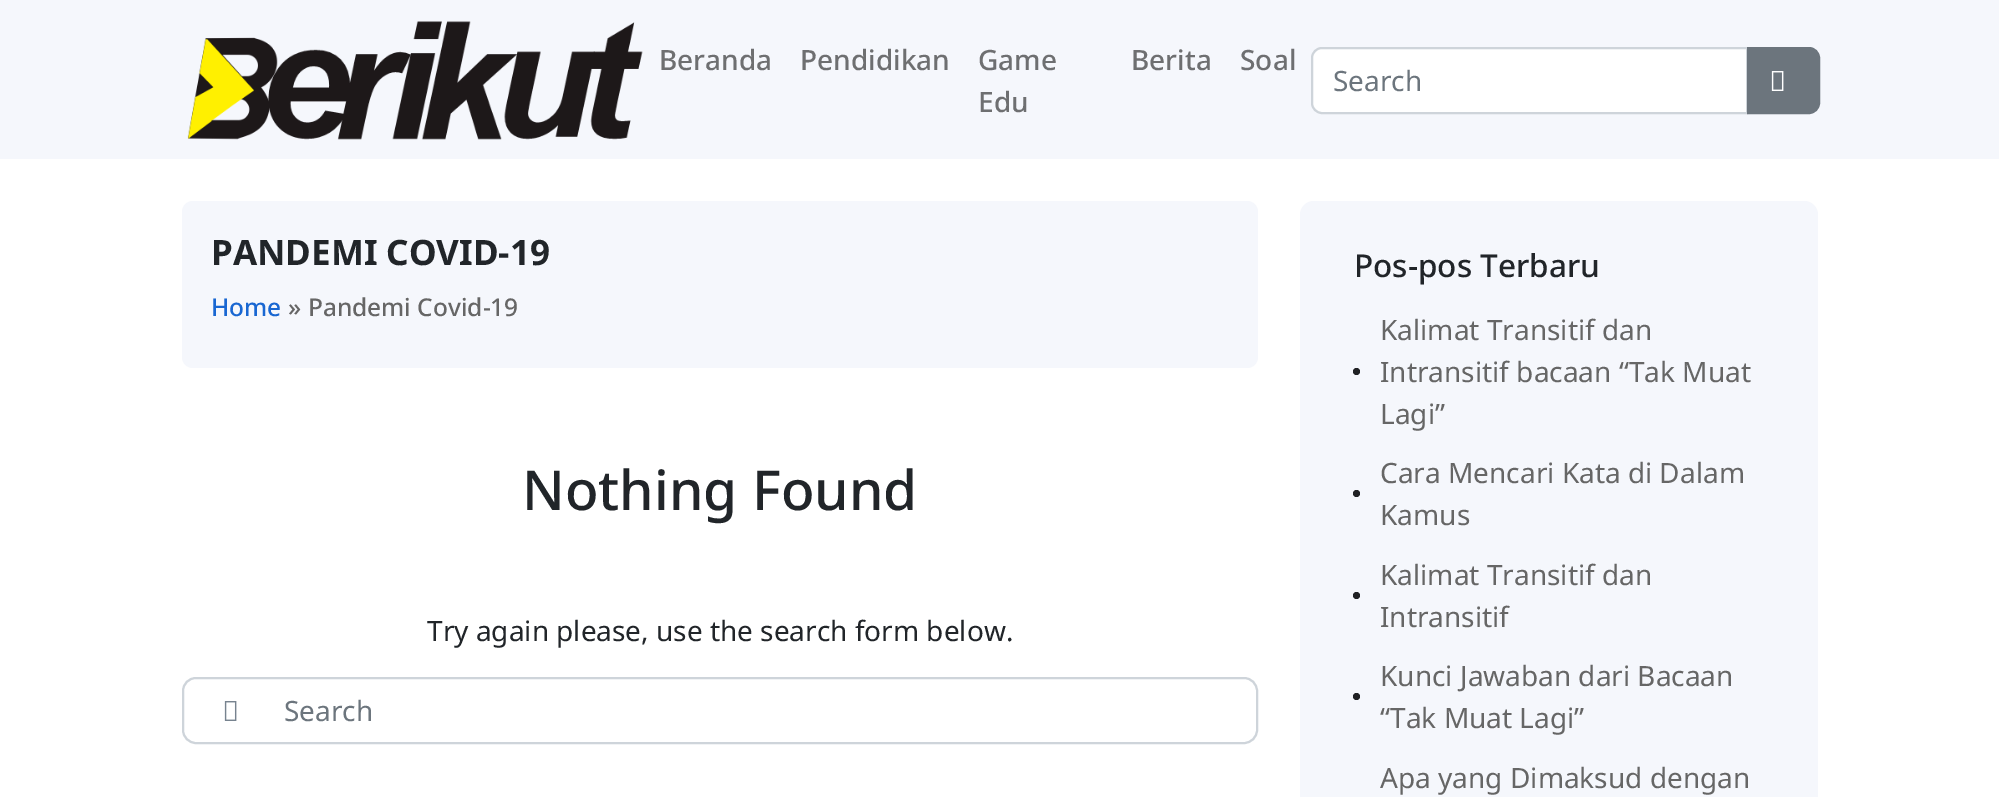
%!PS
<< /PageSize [1999 797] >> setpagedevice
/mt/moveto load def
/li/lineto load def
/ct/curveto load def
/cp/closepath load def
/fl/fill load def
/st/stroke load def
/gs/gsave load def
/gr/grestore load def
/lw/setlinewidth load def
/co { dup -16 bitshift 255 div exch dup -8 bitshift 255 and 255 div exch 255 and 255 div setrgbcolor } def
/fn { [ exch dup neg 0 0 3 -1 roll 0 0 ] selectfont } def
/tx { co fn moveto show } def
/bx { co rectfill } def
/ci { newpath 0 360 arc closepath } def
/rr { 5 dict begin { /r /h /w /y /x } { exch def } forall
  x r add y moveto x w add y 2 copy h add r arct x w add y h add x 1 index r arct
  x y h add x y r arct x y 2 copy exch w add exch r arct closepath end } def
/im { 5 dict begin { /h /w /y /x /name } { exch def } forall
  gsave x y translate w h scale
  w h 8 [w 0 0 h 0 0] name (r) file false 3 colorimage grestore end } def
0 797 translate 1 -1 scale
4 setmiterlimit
0 0 1999 797 16#FFFFFF bx
0 0 1999 159 16#F5F7FC bx
(media/1.raw) 187 21 456 119 im
16#FFFFFF co
1322 48 mt 1747 48 li 1747 113 li 1322 113 li 1316.5 113 1312 108.5 1312 103 ct 1312 58 li 1312 52.5 1316.5 48 1322 48 ct cp gs fl gr
16#CED4DA co
2 lw
st
16#6C757D co
1748 48 mt 1809 48 li 1814.5 48 1819 52.5 1819 58 ct 1819 103 li 1819 108.5 1814.5 113 1809 113 ct 1748 113 li cp gs fl gr
st
(media/2.raw) 1771 71 13 20 im
16#F5F7FC co
182 201 1076 167 11 rr fl
16#CED4DA co
183 678 1074 65 13 rr st
(media/3.raw) 224 701 13 20 im
16#F5F7FC co
1300 201 518 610 14 rr fl
16#202124 co
1356.5 371.5 3.5 ci fl
1356.5 493.5 3.5 ci fl
1356.5 595.5 3.5 ci fl
1356.5 696.5 3.5 ci fl
(Beranda) 659 70 /NotoSans-Medium 28 16#6E6F71 tx
(Pendidikan) 800 70 /NotoSans-Medium 28 16#6E6F71 tx
(Game) 978 70 /NotoSans-Medium 28 16#6E6F71 tx
(Edu) 978 112 /NotoSans-Medium 28 16#6E6F71 tx
(Berita) 1131 70 /NotoSans-Medium 28 16#6E6F71 tx
(Soal) 1240 70 /NotoSans-Medium 28 16#6E6F71 tx
(Search) 1333 91 /NotoSans-Regular 28 16#6C757D tx
(PANDEMI COVID-19) 211 265 /NotoSans-Bold 35 16#212529 tx
(Home) 211 316 /NotoSans-Medium 24.5 16#1967D2 tx
(» Pandemi Covid-19) 288 316 /NotoSans-Medium 24.5 16#666666 tx
(Nothing Found) 522 510 /NotoSans-Medium 55 16#212529 tx
(Try again please, use the search form below.) 427 641 /NotoSans-Regular 28 16#212529 tx
(Search) 284 721 /NotoSans-Regular 28 16#6C757D tx
(Pos-pos Terbaru) 1354 277 /NotoSans-Medium 31.5 16#212529 tx
(Kalimat Transitif dan) 1380 340 /NotoSans-Regular 28 16#666666 tx
(Intransitif bacaan “Tak Muat) 1380 382 /NotoSans-Regular 28 16#666666 tx
(Lagi”) 1380 424 /NotoSans-Regular 28 16#666666 tx
(Cara Mencari Kata di Dalam) 1380 483 /NotoSans-Regular 28 16#666666 tx
(Kamus) 1380 525 /NotoSans-Regular 28 16#666666 tx
(Kalimat Transitif dan) 1380 585 /NotoSans-Regular 28 16#666666 tx
(Intransitif) 1380 627 /NotoSans-Regular 28 16#666666 tx
(Kunci Jawaban dari Bacaan) 1380 686 /NotoSans-Regular 28 16#666666 tx
(“Tak Muat Lagi”) 1380 728 /NotoSans-Regular 28 16#666666 tx
(Apa yang Dimaksud dengan) 1380 788 /NotoSans-Regular 28 16#666666 tx
showpage
